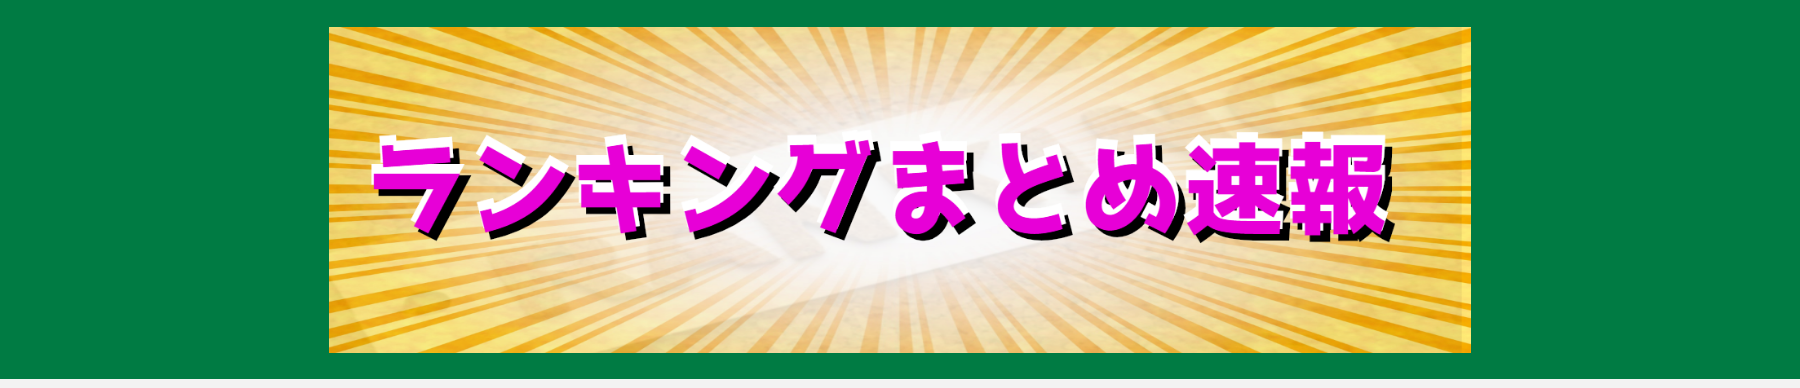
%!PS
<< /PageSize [1800 388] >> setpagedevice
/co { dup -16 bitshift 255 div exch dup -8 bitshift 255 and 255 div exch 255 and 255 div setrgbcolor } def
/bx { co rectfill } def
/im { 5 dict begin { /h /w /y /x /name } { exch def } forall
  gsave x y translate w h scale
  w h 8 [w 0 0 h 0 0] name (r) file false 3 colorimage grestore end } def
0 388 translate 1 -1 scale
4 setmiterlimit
0 0 1800 388 16#F3F3F2 bx
0 0 1800 379 16#007B43 bx
(media/1.raw) 329 27 1142 326 im
showpage
